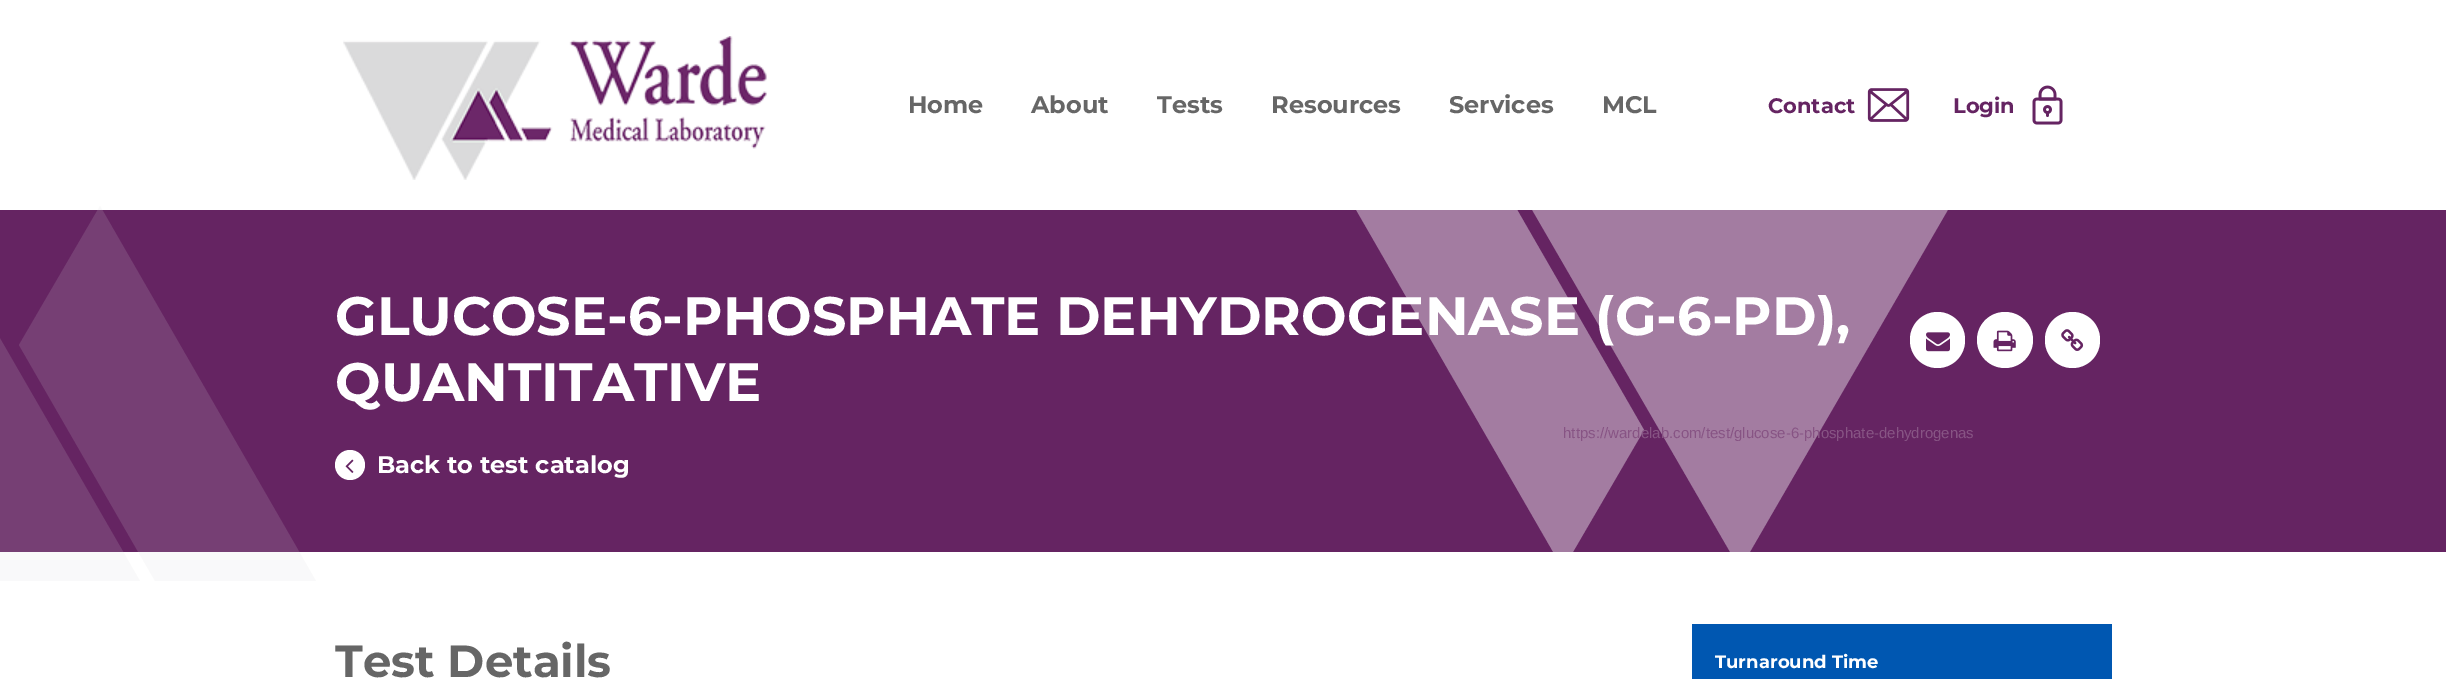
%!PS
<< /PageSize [2446 679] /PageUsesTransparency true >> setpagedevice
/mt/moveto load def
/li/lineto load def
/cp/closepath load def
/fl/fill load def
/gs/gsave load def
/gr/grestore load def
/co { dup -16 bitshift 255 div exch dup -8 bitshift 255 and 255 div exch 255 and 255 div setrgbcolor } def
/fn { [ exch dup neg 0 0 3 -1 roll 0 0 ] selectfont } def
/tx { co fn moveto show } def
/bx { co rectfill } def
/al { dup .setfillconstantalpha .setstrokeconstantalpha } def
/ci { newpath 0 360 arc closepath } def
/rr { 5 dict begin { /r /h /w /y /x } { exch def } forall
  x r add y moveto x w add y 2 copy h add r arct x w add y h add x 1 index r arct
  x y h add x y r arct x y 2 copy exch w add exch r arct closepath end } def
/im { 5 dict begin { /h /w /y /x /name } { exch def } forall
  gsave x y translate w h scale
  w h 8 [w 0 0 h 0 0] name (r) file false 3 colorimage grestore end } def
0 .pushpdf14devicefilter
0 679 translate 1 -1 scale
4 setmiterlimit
0 0 2446 679 16#FFFFFF bx
(media/1.raw) 343 36 424 144 im
(media/2.raw) 1867 88 43 34 im
(media/3.raw) 2032 85 31 40 im
0 210 2446 342 16#652462 bx
0.15 al
16#DADADB co
-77 205 mt -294 581 li 140 581 li cp fl
155 581 mt 19 345 li 100 206 li 316 581 li cp fl
0.4 al
16#FFFFFF co
1740 569 mt 1957 194 li 1523 194 li cp fl
1508 194 mt 1644 430 li 1563 569 li 1347 194 li cp fl
1 al
350 465 15 ci fl
(media/4.raw) 345 459 9 14 im
1910 312 55 56 27.5 rr fl
(media/5.raw) 1926 332 24 20 im
2005 340 28 ci fl
(media/6.raw) 1993 330 23 22 im
2045 312 55 56 27.5 rr fl
(media/7.raw) 2061 329 23 22 im
1692 624 420 55 16#0057B1 bx
(Home) 908 113 /Montserrat-Bold 24 16#666666 tx
(About) 1031 113 /Montserrat-Bold 24 16#666666 tx
(Tests) 1157 113 /Montserrat-Bold 24 16#666666 tx
(Resources) 1271 113 /Montserrat-Bold 24 16#666666 tx
(Services) 1449 113 /Montserrat-Bold 24 16#666666 tx
(MCL) 1602 113 /Montserrat-Bold 24 16#666666 tx
(Contact) 1768 113 /Montserrat-Bold 21 16#652462 tx
(Login) 1953 113 /Montserrat-Bold 21 16#652462 tx
(GLUCOSE-6-PHOSPHATE DEHYDROGENASE \(G-6-PD\),) 335 335 /Montserrat-Bold 54 16#FFFFFF tx
(QUANTITATIVE) 335 401 /Montserrat-Bold 54 16#FFFFFF tx
(Back to test catalog) 377 473 /Montserrat-Bold 24 16#FFFFFF tx
gs
1563 425 414 16 rectclip
(https://wardelab.com/test/glucose-6-phosphate-dehydrogenas) 1563 438 /LiberationSans-Regular 15 16#875484 tx
gr
gs
335 624 1237 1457 rectclip
(Test Details) 335 677 /Montserrat-Bold 45 16#666666 tx
gr
(Turnaround Time) 1715 668 /Montserrat-Bold 18 16#FFFFFF tx
.poppdf14devicefilter showpage
